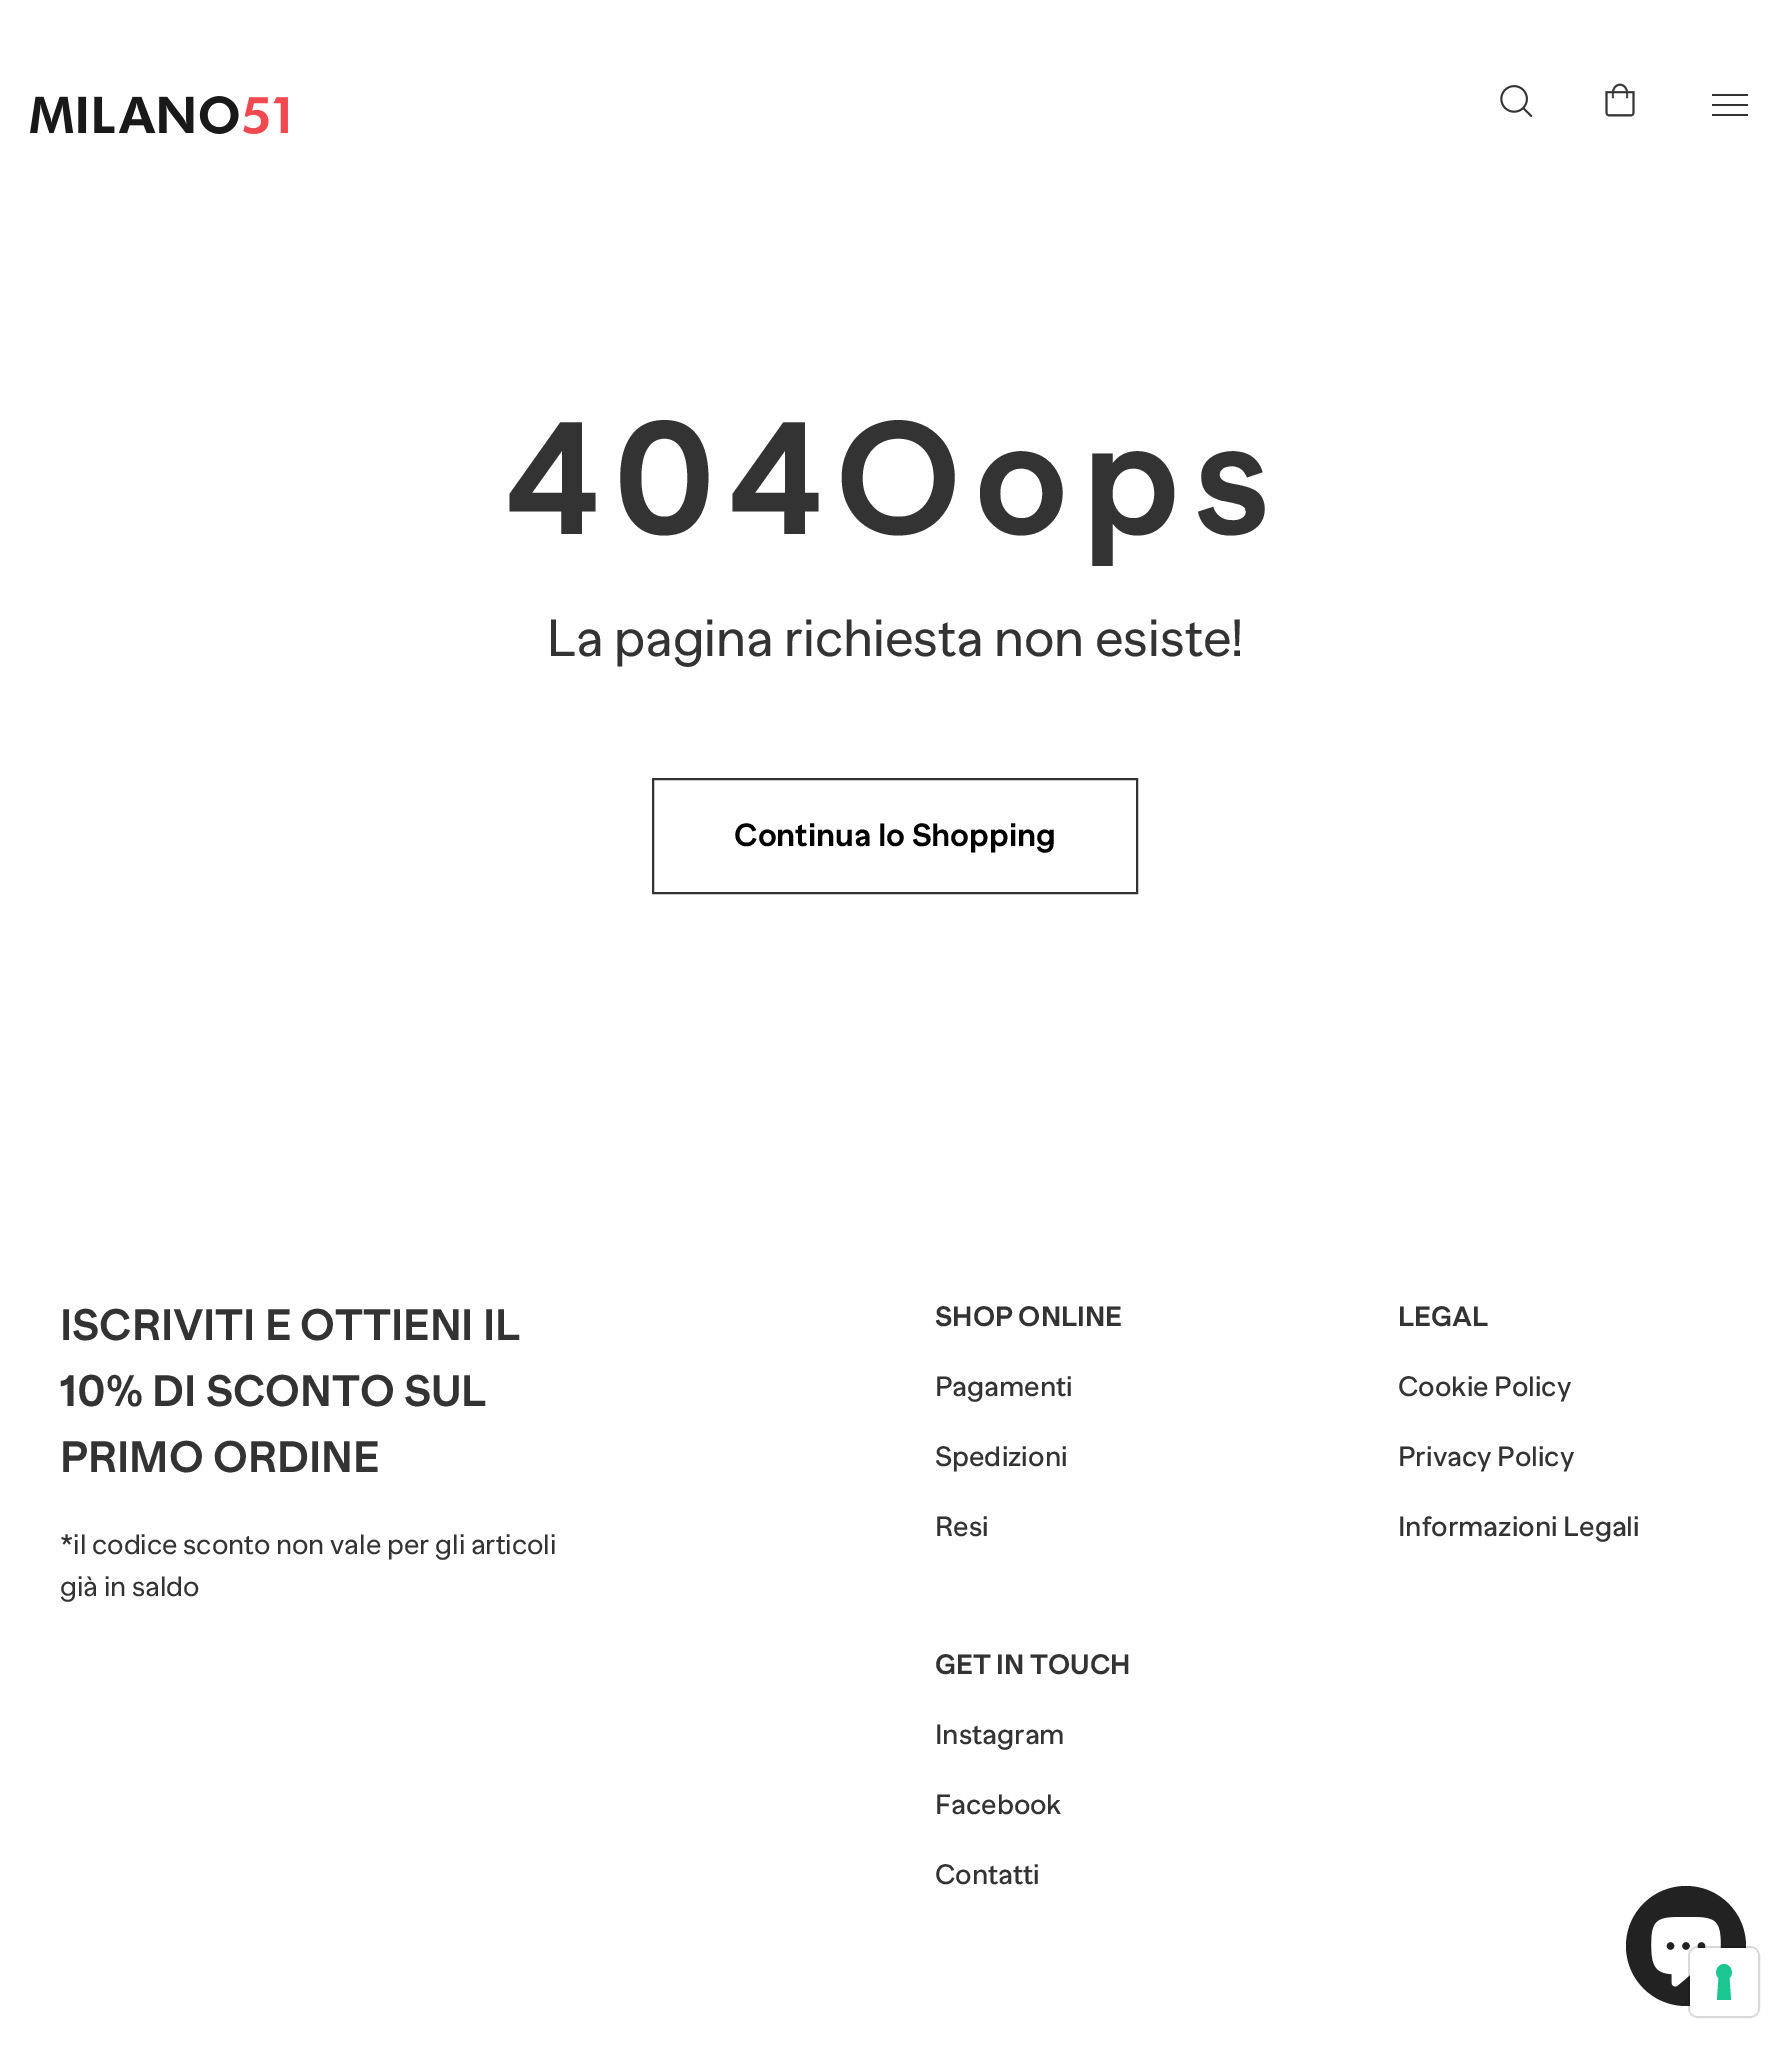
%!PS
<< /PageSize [1789 2048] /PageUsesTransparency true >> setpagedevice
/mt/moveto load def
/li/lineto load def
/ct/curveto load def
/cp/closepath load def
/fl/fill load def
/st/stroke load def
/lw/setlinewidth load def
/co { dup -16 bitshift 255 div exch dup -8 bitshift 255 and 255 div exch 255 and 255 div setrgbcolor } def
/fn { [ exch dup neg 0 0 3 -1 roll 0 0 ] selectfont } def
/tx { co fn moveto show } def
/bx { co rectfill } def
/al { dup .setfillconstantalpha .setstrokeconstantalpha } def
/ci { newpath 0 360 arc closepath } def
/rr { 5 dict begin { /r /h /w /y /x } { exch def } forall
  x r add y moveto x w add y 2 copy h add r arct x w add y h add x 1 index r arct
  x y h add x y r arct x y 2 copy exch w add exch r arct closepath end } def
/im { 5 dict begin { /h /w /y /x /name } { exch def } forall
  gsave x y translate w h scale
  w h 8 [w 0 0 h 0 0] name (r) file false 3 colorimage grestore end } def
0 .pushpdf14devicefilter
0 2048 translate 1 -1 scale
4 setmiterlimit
0 0 1789 2048 16#FFFFFF bx
(media/1.raw) 30 96 258 38 im
(media/2.raw) 1500 85 33 32 im
(media/3.raw) 1605 83 30 34 im
1712 94 36 2 16#333333 bx
1712 104 36 2 16#333333 bx
1712 114 36 2 16#333333 bx
2 lw
653 779 484 114 rectstroke
16#222222 co
1686 1946 60 ci fl
(media/4.raw) 1651 1917 70 70 im
0.15 al
16#000000 co
1689 1947 70 70 9 rr st
1 al
16#FFFFFF co
1690 1948 68 68 8 rr fl
16#1CC691 co
1724 1964 mt 1731 1964 1734.5 1973.5 1729.5 1978 ct 1731 2000 li 1717 2000 li 1718.5 1978 li 1713.5 1973.5 1717 1964 1724 1964 ct cp eofill
/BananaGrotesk-Bold 160 fn
16#333333 co
506 534 mt 12.75 0 (404Oops) ashow
(La pagina richiesta non esiste!) 547 656 /BananaGrotesk-Regular 52 16#333333 tx
(Continua lo Shopping) 734 846 /BananaGrotesk-Bold 32 16#000000 tx
(ISCRIVITI E OTTIENI IL) 60 1340 /BananaGrotesk-Bold 44 16#333333 tx
(10% DI SCONTO SUL) 60 1406 /BananaGrotesk-Bold 44 16#333333 tx
(PRIMO ORDINE) 60 1472 /BananaGrotesk-Bold 44 16#333333 tx
(*il codice sconto non vale per gli articoli) 60 1554 /BananaGrotesk-Regular 28 16#333333 tx
(già in saldo) 60 1596 /BananaGrotesk-Regular 28 16#333333 tx
(SHOP ONLINE) 935 1326 /BananaGrotesk-Bold 28 16#333333 tx
(Pagamenti) 935 1396 /BananaGrotesk-Medium 28 16#333333 tx
(Spedizioni) 935 1466 /BananaGrotesk-Medium 28 16#333333 tx
(Resi) 935 1536 /BananaGrotesk-Medium 28 16#333333 tx
(LEGAL) 1398 1326 /BananaGrotesk-Bold 28 16#333333 tx
(Cookie Policy) 1398 1396 /BananaGrotesk-Medium 28 16#333333 tx
(Privacy Policy) 1398 1466 /BananaGrotesk-Medium 28 16#333333 tx
(Informazioni Legali) 1398 1536 /BananaGrotesk-Medium 28 16#333333 tx
(GET IN TOUCH) 935 1674 /BananaGrotesk-Bold 28 16#333333 tx
(Instagram) 935 1744 /BananaGrotesk-Medium 28 16#333333 tx
(Facebook) 935 1814 /BananaGrotesk-Medium 28 16#333333 tx
(Contatti) 935 1884 /BananaGrotesk-Medium 28 16#333333 tx
.poppdf14devicefilter showpage
